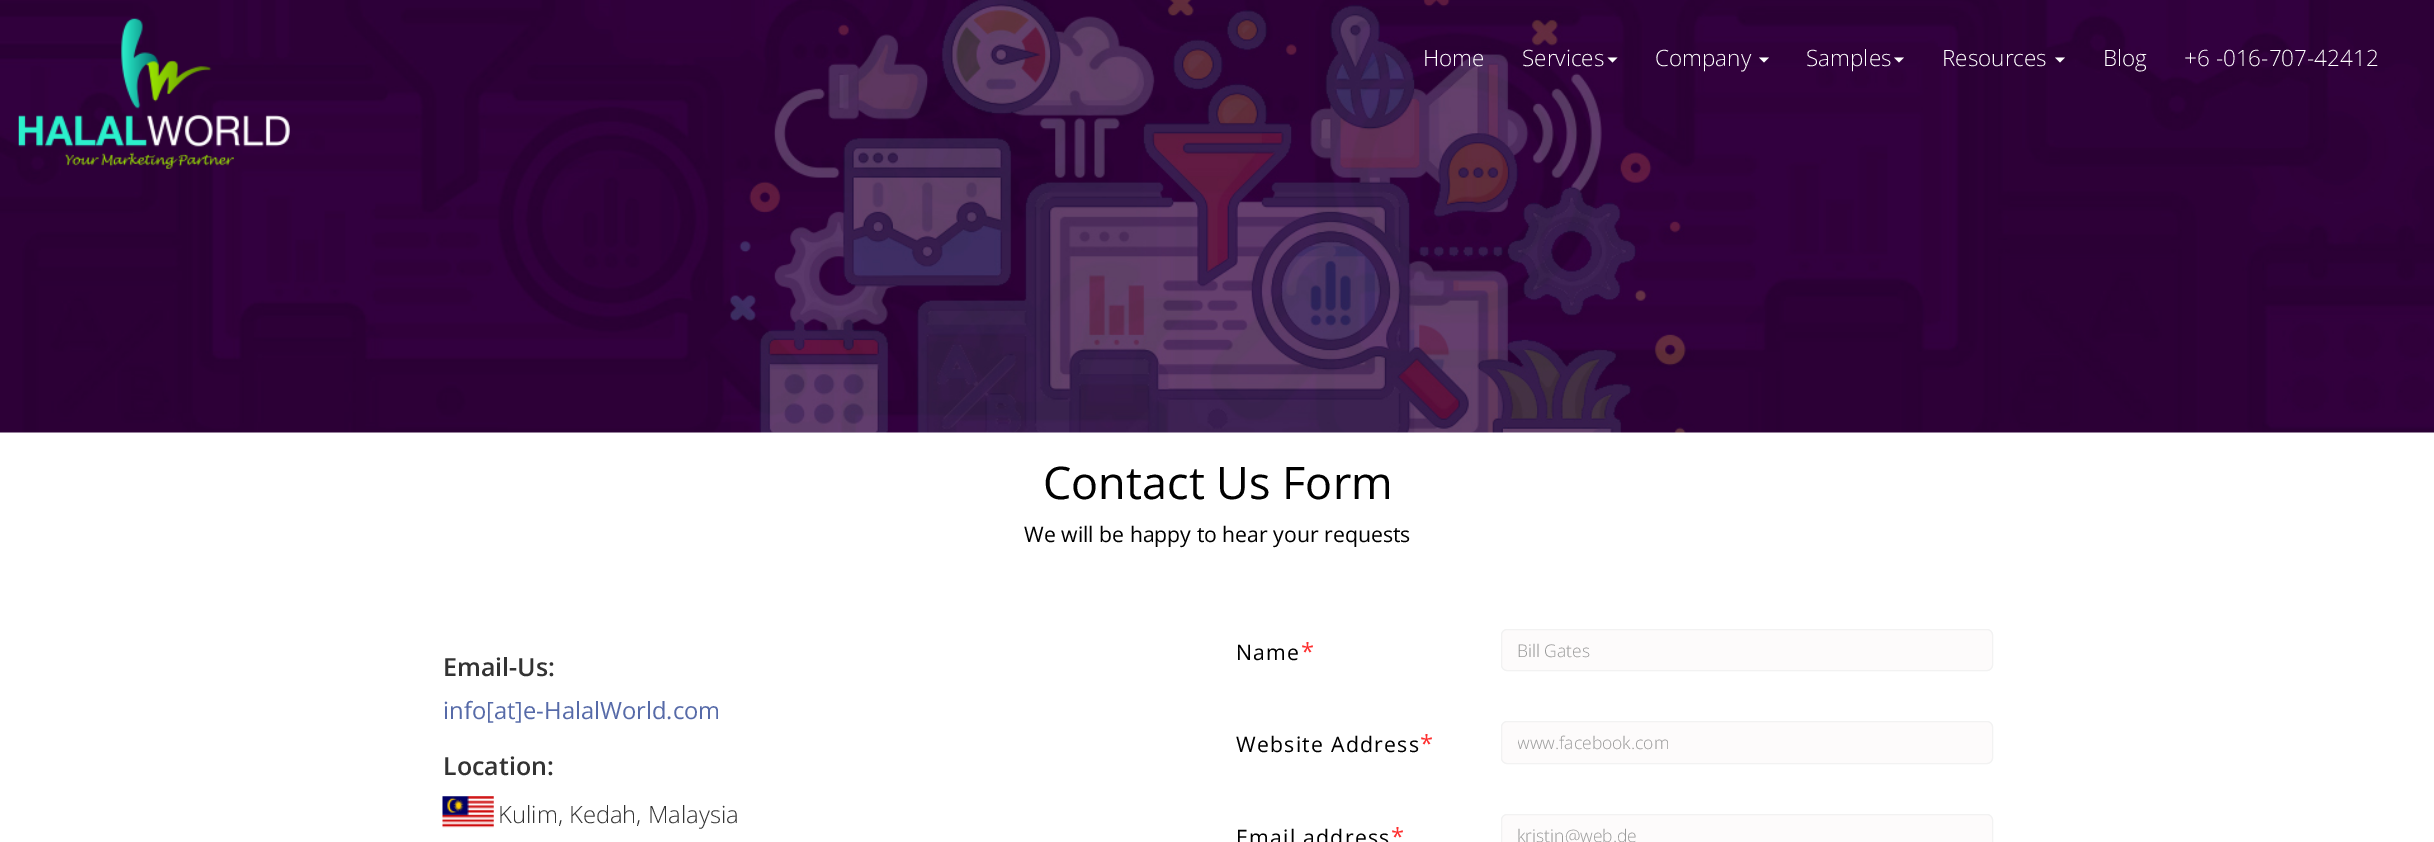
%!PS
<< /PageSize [2434 842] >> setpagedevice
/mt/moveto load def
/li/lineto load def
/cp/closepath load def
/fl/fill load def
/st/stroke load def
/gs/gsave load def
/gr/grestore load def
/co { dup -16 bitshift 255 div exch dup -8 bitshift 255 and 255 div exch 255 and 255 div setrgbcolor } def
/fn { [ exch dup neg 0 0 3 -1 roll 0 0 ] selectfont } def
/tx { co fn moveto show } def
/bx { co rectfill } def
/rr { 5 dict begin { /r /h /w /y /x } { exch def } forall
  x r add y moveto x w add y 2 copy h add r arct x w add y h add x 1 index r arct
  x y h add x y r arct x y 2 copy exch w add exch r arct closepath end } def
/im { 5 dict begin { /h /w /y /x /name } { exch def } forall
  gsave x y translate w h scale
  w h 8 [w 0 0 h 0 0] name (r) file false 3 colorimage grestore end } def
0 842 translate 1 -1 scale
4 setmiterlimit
0 0 2434 842 16#FFFFFF bx
(media/2.raw) 0 0 2434 433 im
(media/1.raw) 18 18 272 151 im
1607.5 57.5 mt 1617.5 57.5 li 1612.5 62.5 li cp fl
1759 57.5 mt 1769 57.5 li 1764 62.5 li cp fl
1894 57.5 mt 1904 57.5 li 1899 62.5 li cp fl
2055 57.5 mt 2065 57.5 li 2060 62.5 li cp fl
(media/3.raw) 442 796 52 32 im
16#FDFBFB co
1501.5 629.5 491 41 5.5 rr gs fl gr
16#F2F2F2 co
st
16#FDFBFB co
1501.5 721.5 491 42 5.5 rr gs fl gr
16#F2F2F2 co
st
16#FDFBFB co
1501.5 814.5 491 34 5.5 rr gs fl gr
16#F2F2F2 co
st
(Home) 1423 66 /OpenSans-Light 22.5 16#FFFFFF tx
(Services) 1522 66 /OpenSans-Light 22.5 16#FFFFFF tx
(Company) 1655 66 /OpenSans-Light 22.5 16#FFFFFF tx
(Samples) 1806 66 /OpenSans-Light 22.5 16#FFFFFF tx
(Resources) 1942 66 /OpenSans-Light 22.5 16#FFFFFF tx
(Blog) 2103 66 /OpenSans-Light 22.5 16#FFFFFF tx
(+6 -016-707-42412) 2184 66 /OpenSans-Light 22.5 16#FFFFFF tx
(Contact Us Form) 1043 499 /OpenSans-Regular 45 16#000000 tx
(We will be happy to hear your requests) 1024 542 /OpenSans-Regular 21.25 16#000000 tx
(Email-Us:) 443 676 /OpenSans-SemiBold 25 16#333333 tx
(info[at]e-HalalWorld.com) 443 719 /OpenSans-Regular 23.75 16#566AA8 tx
(Location:) 443 775 /OpenSans-SemiBold 25 16#333333 tx
(Kulim, Kedah, Malaysia) 498 823 /OpenSans-Light 23.75 16#333333 tx
/OpenSans-Regular 21.25 fn
16#000000 co
1236 660 mt 1.25 0 (Name) ashow
/OpenSans-Regular 23.75 fn
16#FE2F2F co
1301 660 mt 1.25 0 (*) ashow
(Bill Gates) 1517 657 /OpenSans-Light 17.5 16#999999 tx
/OpenSans-Regular 21.25 fn
16#000000 co
1236 752 mt 1.25 0 (Website Address) ashow
/OpenSans-Regular 23.75 fn
16#FE2F2F co
1420 752 mt 1.25 0 (*) ashow
gs
1518 730 458 24 rectclip
(www.facebook.com) 1517 749 /OpenSans-Light 17.5 16#999999 tx
gr
/OpenSans-Regular 21.25 fn
16#000000 co
1236 845 mt 1.25 0 (Email address) ashow
/OpenSans-Regular 23.75 fn
16#FE2F2F co
1391 845 mt 1.25 0 (*) ashow
(kristin@web.de) 1517 842 /OpenSans-Light 17.5 16#999999 tx
showpage
